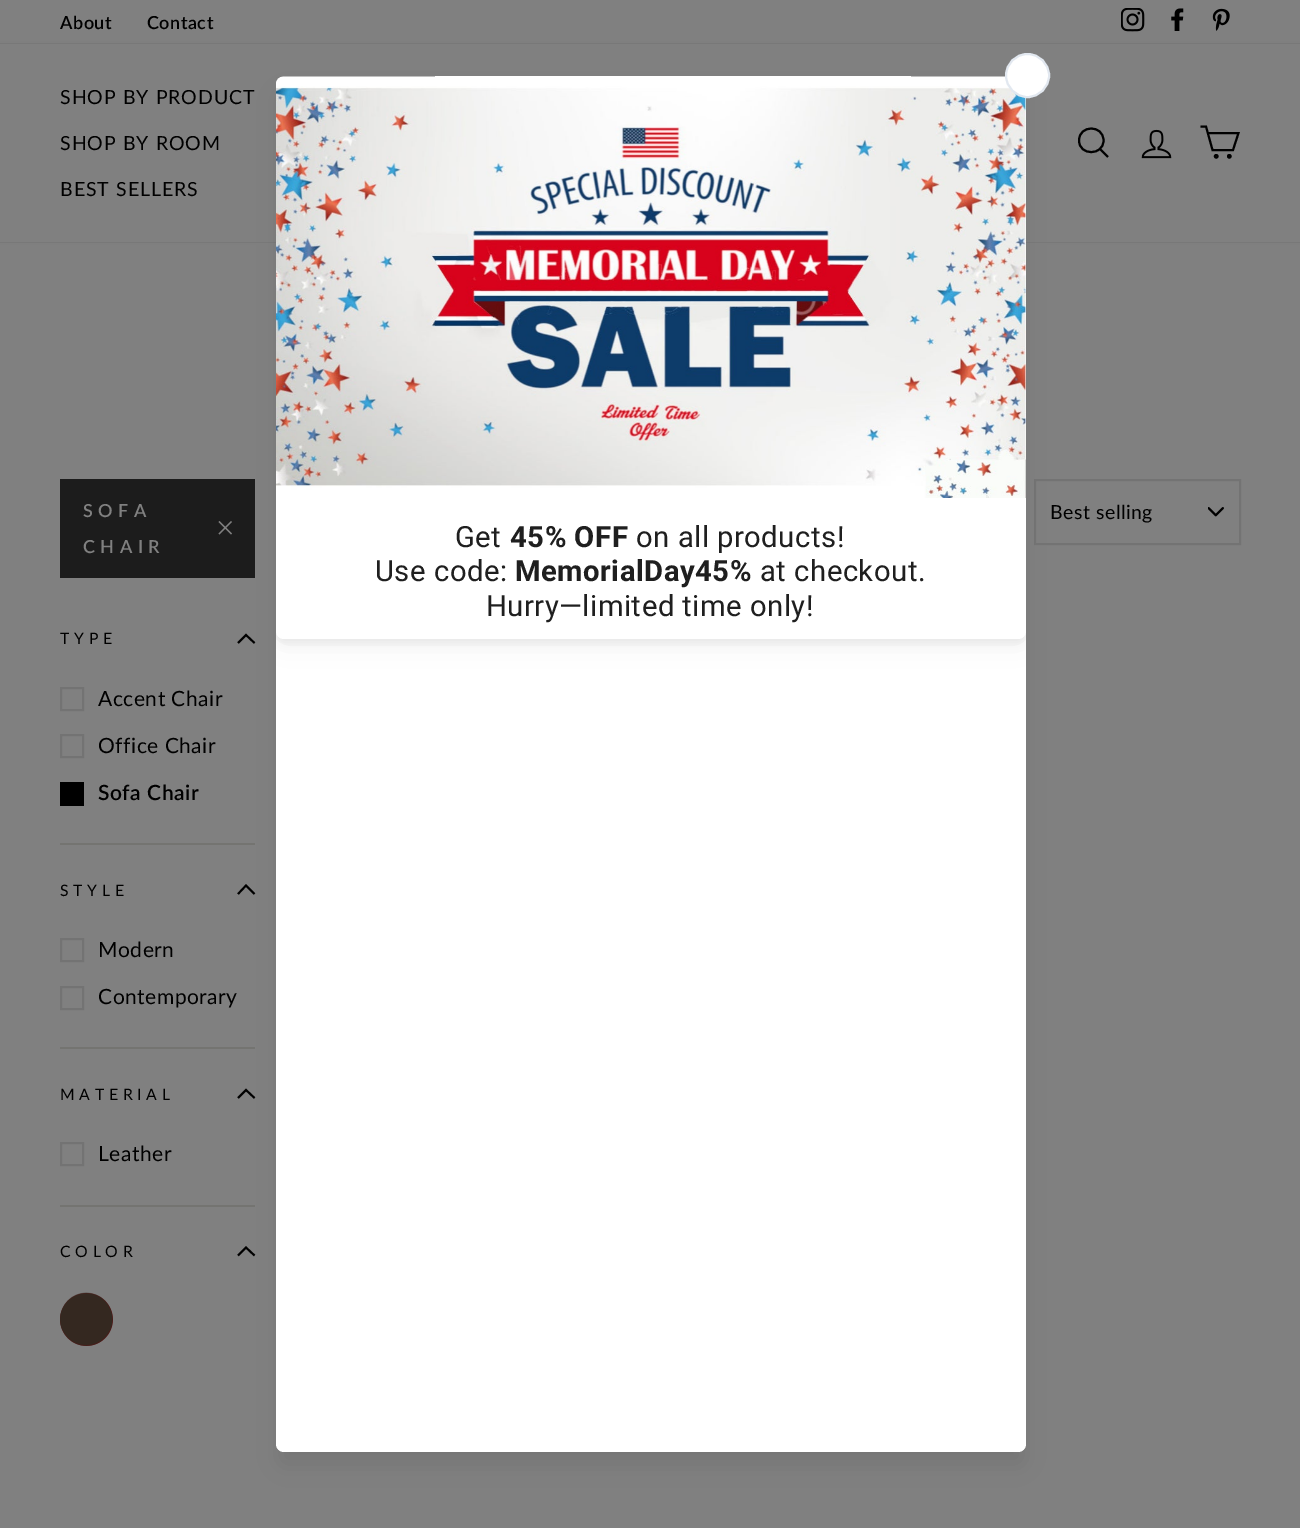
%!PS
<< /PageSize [1300 1528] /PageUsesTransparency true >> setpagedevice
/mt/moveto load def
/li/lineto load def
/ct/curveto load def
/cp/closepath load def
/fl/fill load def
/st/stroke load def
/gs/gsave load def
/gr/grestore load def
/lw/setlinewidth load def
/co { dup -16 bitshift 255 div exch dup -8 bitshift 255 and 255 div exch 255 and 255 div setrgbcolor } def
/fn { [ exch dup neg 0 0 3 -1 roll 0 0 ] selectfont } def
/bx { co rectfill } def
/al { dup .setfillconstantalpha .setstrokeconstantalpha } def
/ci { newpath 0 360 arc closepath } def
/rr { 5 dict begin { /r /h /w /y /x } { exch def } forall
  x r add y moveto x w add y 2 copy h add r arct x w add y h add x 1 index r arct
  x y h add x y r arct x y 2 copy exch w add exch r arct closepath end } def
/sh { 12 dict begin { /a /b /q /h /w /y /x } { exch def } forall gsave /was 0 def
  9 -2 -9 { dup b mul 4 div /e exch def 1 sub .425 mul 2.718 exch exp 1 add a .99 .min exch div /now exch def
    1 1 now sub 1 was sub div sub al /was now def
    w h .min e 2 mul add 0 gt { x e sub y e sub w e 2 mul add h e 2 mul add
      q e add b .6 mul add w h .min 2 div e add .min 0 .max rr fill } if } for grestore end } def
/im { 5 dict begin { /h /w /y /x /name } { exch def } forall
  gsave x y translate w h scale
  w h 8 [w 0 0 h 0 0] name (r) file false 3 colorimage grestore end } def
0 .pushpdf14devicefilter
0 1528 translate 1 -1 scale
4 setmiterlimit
0 0 1300 1528 16#808080 bx
(media/1.raw) 1121 8 24 24 im
(media/2.raw) 1171 8 13 23 im
(media/3.raw) 1212 8 18 23 im
16#000000 co
0 44 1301 198 0 1 .2 sh
0 44 1300 198 16#808080 bx
16#000000 co
2 lw
1103.5 140.5 mt 1103.5 156 1079 156 1079 140.5 ct 1079 124.5 1103.5 124.5 1103.5 140.5 ct cp 1108 157 mt 1100 149 li st
(media/4.raw) 1141 129 31 30 im
1207.5 133 mt 1238.5 133 li 1233 150 li 1212.5 150 li 1206 126.5 li 1200.5 126.5 li st
1216.2 156.3 1.3 ci st
1229.3 156.3 1.3 ci st
60 479 195 99 16#1C1C1C bx
16#808080 co
1.4 lw
219 521.5 mt 231.5 534 li 231.5 521.5 mt 219 534 li st
16#000000 co
1.9 lw
238 643 mt 246 635 li 254.5 643 li st
16#737373 co
2 lw
61 688 22 22 rectstroke
61 735 22 22 rectstroke
60 782 24 24 16#000000 bx
60 843 195 2 16#747471 bx
16#000000 co
1.9 lw
238 894 mt 246 885.5 li 254.5 894 li st
16#737373 co
2 lw
61 939 22 22 rectstroke
61 987 22 22 rectstroke
60 1047 195 2 16#747471 bx
16#000000 co
1.9 lw
238 1098 mt 246 1090 li 254.5 1098 li st
16#737373 co
2 lw
61 1143 22 22 rectstroke
60 1205 195 2 16#747471 bx
16#000000 co
1.9 lw
238 1255.5 mt 246 1247.5 li 254.5 1255.5 li st
16#531515 co
86.5 1319.5 26.5 ci fl
(media/5.raw) 60 1292 53 54 im
(media/6.raw) 1208 507 16 10 im
16#737373 co
2 lw
1035 480 205 64 rectstroke
16#000000 co
281 96 741 1367 3 11 .1 sh
16#FFFFFF co
276 77 750 1375 8 rr fl
16#000000 co
279 86 744 556 5 4.5 .05 sh
gs
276 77 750 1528 rectclip
281 81 741 554 3 15 .12 sh
gr
16#FFFFFF co
276 77 750 562 8 rr fl
(media/7.raw) 276 76 750 422 im
1027.5 75.5 21.5 ci gs fl gr
16#E2E8F0 co
st
/Lato-SemiBold 18 fn
16#000000 co
60 29 mt .5 0 (About) ashow
147 29 mt .5 0 (Contact) ashow
/Lato-Regular 19.5 fn
60 104 mt 1 0 (SHOP BY PRODUCT) ashow
60 150 mt 1 0 (SHOP BY ROOM) ashow
60 196 mt 1 0 (BEST SELLERS) ashow
/Lato-SemiBold 18 fn
16#808080 co
83 517 mt 5.5 0 (SOFA) ashow
83 553 mt 5.5 0 (CHAIR) ashow
/Lato-Regular 15.75 fn
16#000000 co
60 644 mt 4.75 0 (TYPE) ashow
/Lato-Regular 21 fn
98 706 mt .5 0 (Accent Chair) ashow
98 753 mt .5 0 (Office Chair) ashow
/Lato-SemiBold 21 fn
98 800 mt .5 0 (Sofa Chair) ashow
/Lato-Regular 15.75 fn
60 896 mt 4.75 0 (STYLE) ashow
/Lato-Regular 21 fn
98 957 mt .5 0 (Modern) ashow
98 1004 mt .5 0 (Contemporary) ashow
/Lato-Regular 15.75 fn
60 1100 mt 4.75 0 (MATERIAL) ashow
/Lato-Regular 21 fn
98 1161 mt .5 0 (Leather) ashow
/Lato-Regular 15.75 fn
60 1257 mt 4.75 0 (COLOR) ashow
/Lato-Regular 19.5 fn
1050 519 mt .5 0 (Best selling) ashow
/Roboto-Regular 29.25 fn
16#1F1F1F co
455 547 mt .5 0 (Get) ashow
/Roboto-Bold 29.25 fn
510 547 mt .5 0 (45% OFF) ashow
/Roboto-Regular 29.25 fn
636 547 mt .5 0 (on all products!) ashow
375 581 mt .5 0 (Use code:) ashow
/Roboto-Bold 29.25 fn
515 581 mt .5 0 (MemorialDay45%) ashow
/Roboto-Regular 29.25 fn
760 581 mt .5 0 (at checkout.) ashow
486 616 mt .5 0 (Hurry—limited time only!) ashow
.poppdf14devicefilter showpage
